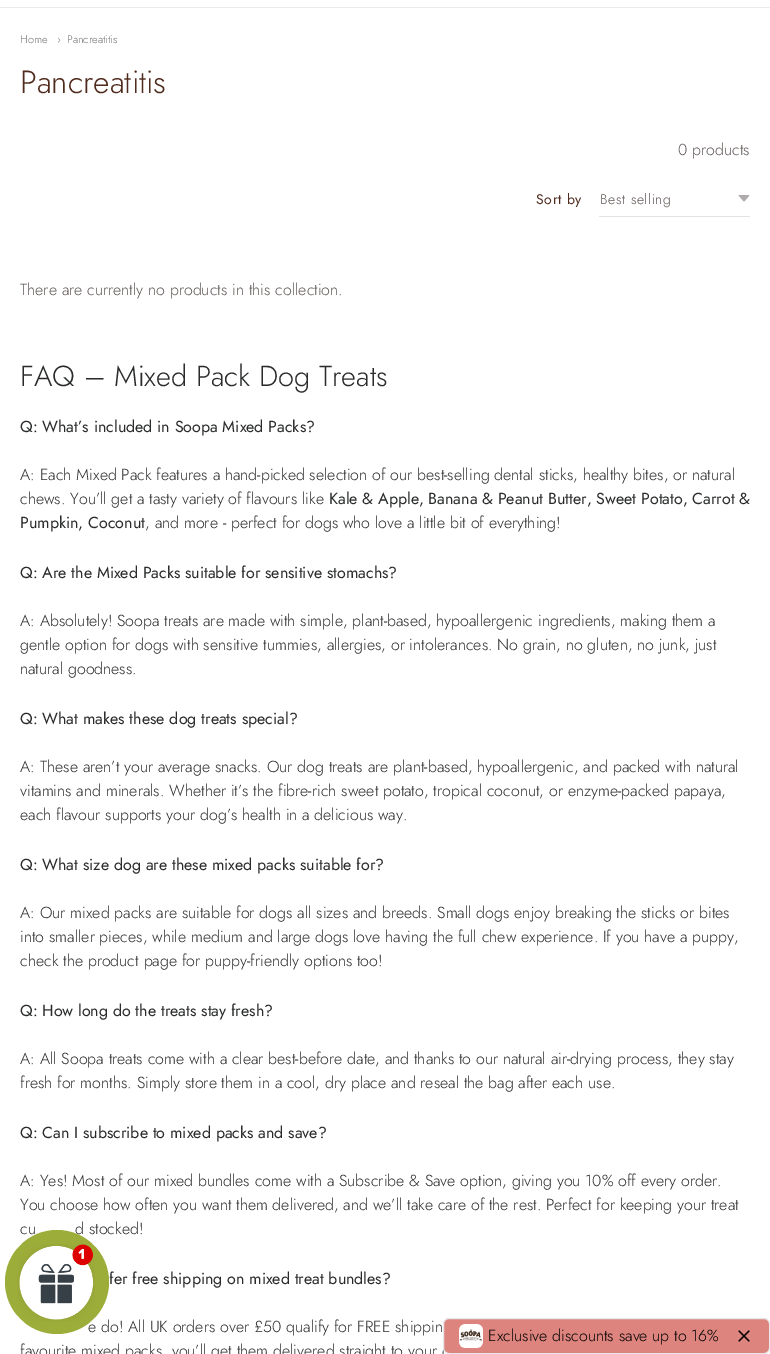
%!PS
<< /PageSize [770 1354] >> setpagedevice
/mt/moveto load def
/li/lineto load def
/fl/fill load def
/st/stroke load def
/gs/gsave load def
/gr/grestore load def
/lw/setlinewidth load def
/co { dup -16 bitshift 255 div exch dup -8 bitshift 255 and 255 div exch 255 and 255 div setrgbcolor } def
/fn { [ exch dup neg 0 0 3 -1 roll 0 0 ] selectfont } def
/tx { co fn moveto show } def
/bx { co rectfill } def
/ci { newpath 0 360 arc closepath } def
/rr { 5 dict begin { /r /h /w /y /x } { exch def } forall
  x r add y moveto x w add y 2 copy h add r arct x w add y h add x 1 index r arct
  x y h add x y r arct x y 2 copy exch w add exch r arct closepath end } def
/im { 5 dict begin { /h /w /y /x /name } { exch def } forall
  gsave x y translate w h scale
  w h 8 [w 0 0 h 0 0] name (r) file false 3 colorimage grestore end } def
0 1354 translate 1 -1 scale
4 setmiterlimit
0 0 770 1354 16#FFFFFF bx
0 7 770 1 16#EBEBEB bx
(media/1.raw) 738 195 12 7 im
599 216 151 1 16#E1E3E4 bx
(Home) 20 43 /Jost-Light 11 16#747474 tx
(›) 57 43 /Jost-Light 11 16#747474 tx
(Pancreatitis) 67 43 /Jost-Light 11 16#747474 tx
(Pancreatitis) 20 93 /Jost-Light 32 16#502C1E tx
(0 products) 678 155 /Jost-Light 16 16#5F5755 tx
/Jost-Regular 14 fn
16#502C1E co
536 204 mt .6 0 (Sort by) ashow
/Jost-Light 14 fn
16#5F5755 co
600 204 mt .6 0 (Best selling) ashow
(There are currently no products in this collection.) 20 295 /Jost-Light 16 16#5F5755 tx
(FAQ – Mixed Pack Dog Treats) 20 386 /Jost-Light 29 16#2A2B2B tx
(Q: What’s included in Soopa Mixed Packs?) 20 432 /Jost-Regular 16 16#2A2B2B tx
(A: Each Mixed Pack features a hand-picked selection of our best-selling dental sticks, healthy bites, or natural) 20 480 /Jost-Light 16 16#2A2B2B tx
(chews. You’ll get a tasty variety of flavours like) 20 504 /Jost-Light 16 16#2A2B2B tx
(Kale & Apple, Banana & Peanut Butter, Sweet Potato, Carrot &) 329 504 /Jost-Regular 16 16#2A2B2B tx
(Pumpkin, Coconut) 20 528 /Jost-Regular 16 16#2A2B2B tx
(, and more - perfect for dogs who love a little bit of everything!) 145 528 /Jost-Light 16 16#2A2B2B tx
(Q: Are the Mixed Packs suitable for sensitive stomachs?) 20 578 /Jost-Regular 16 16#2A2B2B tx
(A: Absolutely! Soopa treats are made with simple, plant-based, hypoallergenic ingredients, making them a) 20 626 /Jost-Light 16 16#2A2B2B tx
(gentle option for dogs with sensitive tummies, allergies, or intolerances. No grain, no gluten, no junk, just) 20 650 /Jost-Light 16 16#2A2B2B tx
(natural goodness.) 20 674 /Jost-Light 16 16#2A2B2B tx
(Q: What makes these dog treats special?) 20 724 /Jost-Regular 16 16#2A2B2B tx
(A: These aren’t your average snacks. Our dog treats are plant-based, hypoallergenic, and packed with natural) 20 772 /Jost-Light 16 16#2A2B2B tx
(vitamins and minerals. Whether it’s the fibre-rich sweet potato, tropical coconut, or enzyme-packed papaya,) 20 796 /Jost-Light 16 16#2A2B2B tx
(each flavour supports your dog’s health in a delicious way.) 20 820 /Jost-Light 16 16#2A2B2B tx
(Q: What size dog are these mixed packs suitable for?) 20 870 /Jost-Regular 16 16#2A2B2B tx
(A: Our mixed packs are suitable for dogs all sizes and breeds. Small dogs enjoy breaking the sticks or bites) 20 918 /Jost-Light 16 16#2A2B2B tx
(into smaller pieces, while medium and large dogs love having the full chew experience. If you have a puppy,) 20 942 /Jost-Light 16 16#2A2B2B tx
(check the product page for puppy-friendly options too!) 20 966 /Jost-Light 16 16#2A2B2B tx
(Q: How long do the treats stay fresh?) 20 1016 /Jost-Regular 16 16#2A2B2B tx
(A: All Soopa treats come with a clear best-before date, and thanks to our natural air-drying process, they stay) 20 1064 /Jost-Light 16 16#2A2B2B tx
(fresh for months. Simply store them in a cool, dry place and reseal the bag after each use.) 20 1088 /Jost-Light 16 16#2A2B2B tx
(Q: Can I subscribe to mixed packs and save?) 20 1138 /Jost-Regular 16 16#2A2B2B tx
(A: Yes! Most of our mixed bundles come with a Subscribe & Save option, giving you 10% off every order.) 20 1186 /Jost-Light 16 16#2A2B2B tx
(You choose how often you want them delivered, and we’ll take care of the rest. Perfect for keeping your treat) 20 1210 /Jost-Light 16 16#2A2B2B tx
(cu) 20 1234 /Jost-Light 16 16#2A2B2B tx
(d stocked!) 75 1234 /Jost-Light 16 16#2A2B2B tx
(fer free shipping on mixed treat bundles?) 109 1284 /Jost-Regular 16 16#2A2B2B tx
(e do! All UK orders over £50 qualify for FREE shippin) 88 1332 /Jost-Light 16 16#2A2B2B tx
(favourite mixed packs, you’ll get them delivered straight to your d) 20 1356 /Jost-Light 16 16#2A2B2B tx
16#9DAD3A co
57 1282 52 ci fl
(media/2.raw) 17 1244 78 78 im
16#DC847D co
443.5 1318.5 326 35 5.5 rr gs fl gr
16#E5E7EB co
st
(media/3.raw) 459 1324 24 24 im
(Exclusive discounts save up to 16%) 488 1341 /Jost-Light 16 16#000000 tx
1.2 lw
1 setlinecap
1 setlinejoin
739 1341 mt 749 1331 li 739 1331 mt 749 1341 li st
showpage
